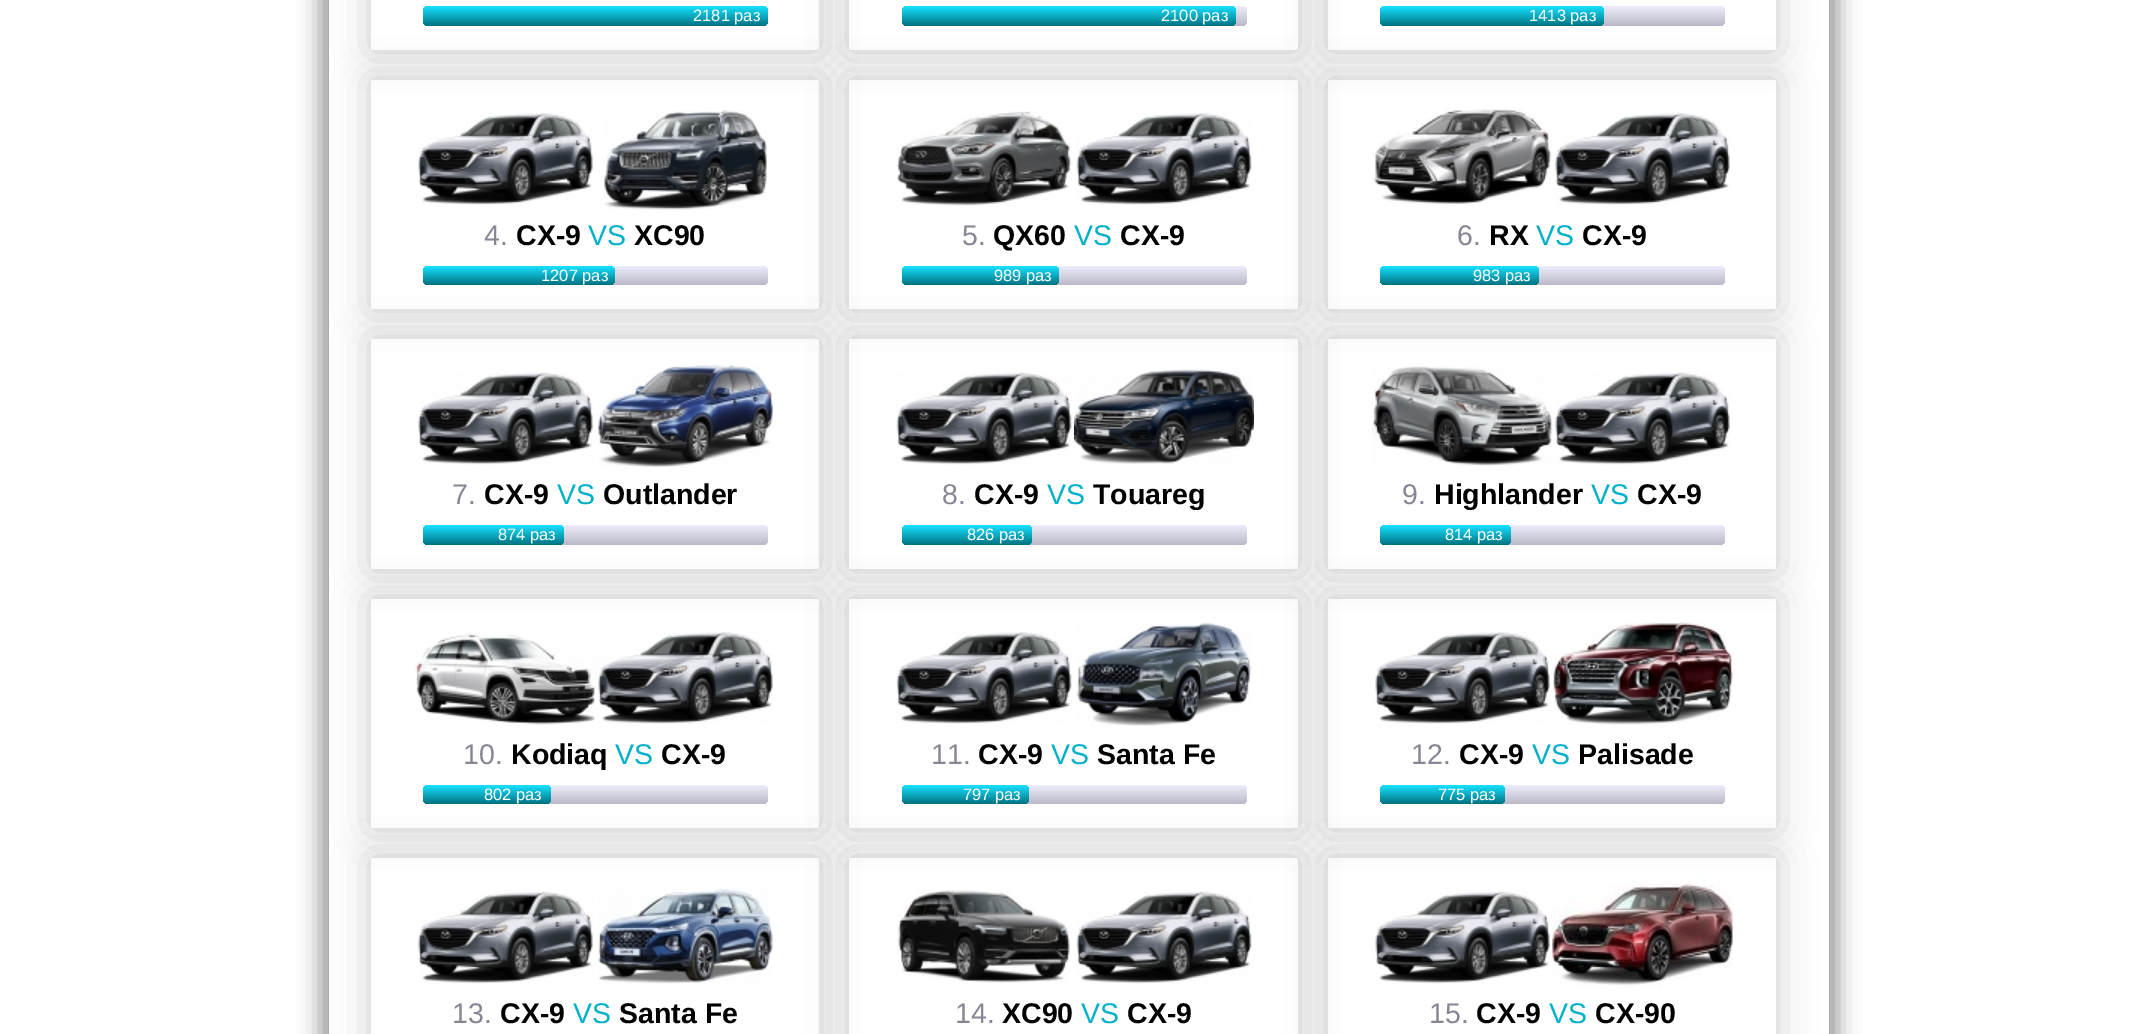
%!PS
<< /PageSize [2156 1034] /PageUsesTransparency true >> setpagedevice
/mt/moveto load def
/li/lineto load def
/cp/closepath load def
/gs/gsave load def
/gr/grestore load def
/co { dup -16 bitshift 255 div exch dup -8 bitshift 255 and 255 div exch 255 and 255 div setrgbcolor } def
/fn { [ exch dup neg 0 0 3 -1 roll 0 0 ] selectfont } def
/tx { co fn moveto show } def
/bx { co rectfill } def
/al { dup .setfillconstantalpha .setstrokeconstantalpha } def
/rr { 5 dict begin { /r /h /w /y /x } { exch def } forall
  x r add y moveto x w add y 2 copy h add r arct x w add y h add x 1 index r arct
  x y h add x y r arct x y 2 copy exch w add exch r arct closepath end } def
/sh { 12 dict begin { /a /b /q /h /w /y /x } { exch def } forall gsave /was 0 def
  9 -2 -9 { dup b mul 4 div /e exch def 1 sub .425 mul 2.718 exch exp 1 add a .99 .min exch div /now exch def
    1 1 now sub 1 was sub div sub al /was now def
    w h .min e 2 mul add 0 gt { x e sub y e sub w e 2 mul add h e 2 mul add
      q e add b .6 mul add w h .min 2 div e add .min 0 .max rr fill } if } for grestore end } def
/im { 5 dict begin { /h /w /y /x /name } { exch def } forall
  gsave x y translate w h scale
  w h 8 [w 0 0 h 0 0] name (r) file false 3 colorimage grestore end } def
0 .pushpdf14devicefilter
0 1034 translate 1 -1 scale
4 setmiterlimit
0 0 2156 1034 16#FFFFFF bx
16#000000 co
320 -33 1518 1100 0 11 .4 sh
329 0 1500 1034 16#FFFFFF bx
gs
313 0 mt 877 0 li 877 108 li 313 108 li cp 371 -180 mt 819 -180 li 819 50 li 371 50 li cp eoclip newpath
16#000000 co
371 -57 448 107 0 19 .2 sh
gr
gs 423 6 345 20 6 rr clip newpath
<< /ShadingType 2 /ColorSpace /DeviceRGB /Coords [596 6 596 26] /Extend [true true] /Function << /FunctionType 2 /Domain [0 1] /C0 [.09 .886 1] /C1 [0 .447 .51] /N 1 >> >> shfill gr
gs
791 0 mt 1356 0 li 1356 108 li 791 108 li cp 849 -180 mt 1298 -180 li 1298 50 li 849 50 li cp eoclip newpath
16#000000 co
849 -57 449 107 0 19 .2 sh
gr
gs 902 6 345 20 6 rr clip newpath
<< /ShadingType 2 /ColorSpace /DeviceRGB /Coords [1074 6 1074 26] /Extend [true true] /Function << /FunctionType 3 /Domain [0 1] /Functions [<< /FunctionType 2 /Domain [0 1] /C0 [.925 .925 .984] /C1 [.925 .925 .984] /N 1 >> << /FunctionType 2 /Domain [0 1] /C0 [.925 .925 .984] /C1 [.725 .725 .784] /N 1 >>] /Bounds [.01] /Encode [0 1 0 1] >> >> shfill gr
gs 902 6 334 20 6 rr clip newpath
<< /ShadingType 2 /ColorSpace /DeviceRGB /Coords [1069 6 1069 26] /Extend [true true] /Function << /FunctionType 2 /Domain [0 1] /C0 [.09 .886 1] /C1 [0 .447 .51] /N 1 >> >> shfill gr
gs
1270 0 mt 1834 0 li 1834 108 li 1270 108 li cp 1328 -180 mt 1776 -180 li 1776 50 li 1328 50 li cp eoclip newpath
16#000000 co
1328 -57 448 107 0 19 .2 sh
gr
gs 1380 6 345 20 6 rr clip newpath
<< /ShadingType 2 /ColorSpace /DeviceRGB /Coords [1553 6 1553 26] /Extend [true true] /Function << /FunctionType 3 /Domain [0 1] /Functions [<< /FunctionType 2 /Domain [0 1] /C0 [.925 .925 .984] /C1 [.925 .925 .984] /N 1 >> << /FunctionType 2 /Domain [0 1] /C0 [.925 .925 .984] /C1 [.725 .725 .784] /N 1 >>] /Bounds [.01] /Encode [0 1 0 1] >> >> shfill gr
gs 1380 6 224 20 6 rr clip newpath
<< /ShadingType 2 /ColorSpace /DeviceRGB /Coords [1492 6 1492 26] /Extend [true true] /Function << /FunctionType 2 /Domain [0 1] /C0 [.09 .886 1] /C1 [0 .447 .51] /N 1 >> >> shfill gr
gs
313 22 mt 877 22 li 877 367 li 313 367 li cp 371 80 mt 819 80 li 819 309 li 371 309 li cp eoclip newpath
16#000000 co
371 80 448 229 0 19 .2 sh
gr
(media/1.raw) 418 113 175 92 im
(media/2.raw) 604 110 163 100 im
gs 423 266 345 19 6 rr clip newpath
<< /ShadingType 2 /ColorSpace /DeviceRGB /Coords [596 266 596 285] /Extend [true true] /Function << /FunctionType 3 /Domain [0 1] /Functions [<< /FunctionType 2 /Domain [0 1] /C0 [.925 .925 .984] /C1 [.925 .925 .984] /N 1 >> << /FunctionType 2 /Domain [0 1] /C0 [.925 .925 .984] /C1 [.725 .725 .784] /N 1 >>] /Bounds [.01] /Encode [0 1 0 1] >> >> shfill gr
gs 423 266 192 19 6 rr clip newpath
<< /ShadingType 2 /ColorSpace /DeviceRGB /Coords [519 266 519 285] /Extend [true true] /Function << /FunctionType 2 /Domain [0 1] /C0 [.09 .886 1] /C1 [0 .447 .51] /N 1 >> >> shfill gr
gs
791 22 mt 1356 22 li 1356 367 li 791 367 li cp 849 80 mt 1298 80 li 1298 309 li 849 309 li cp eoclip newpath
16#000000 co
849 80 449 229 0 19 .2 sh
gr
(media/3.raw) 896 111 176 95 im
(media/4.raw) 1076 113 176 92 im
gs 902 266 345 19 6 rr clip newpath
<< /ShadingType 2 /ColorSpace /DeviceRGB /Coords [1074 266 1074 285] /Extend [true true] /Function << /FunctionType 3 /Domain [0 1] /Functions [<< /FunctionType 2 /Domain [0 1] /C0 [.925 .925 .984] /C1 [.925 .925 .984] /N 1 >> << /FunctionType 2 /Domain [0 1] /C0 [.925 .925 .984] /C1 [.725 .725 .784] /N 1 >>] /Bounds [.01] /Encode [0 1 0 1] >> >> shfill gr
gs 902 266 157 19 6 rr clip newpath
<< /ShadingType 2 /ColorSpace /DeviceRGB /Coords [980 266 980 285] /Extend [true true] /Function << /FunctionType 2 /Domain [0 1] /C0 [.09 .886 1] /C1 [0 .447 .51] /N 1 >> >> shfill gr
gs
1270 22 mt 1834 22 li 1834 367 li 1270 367 li cp 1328 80 mt 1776 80 li 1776 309 li 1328 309 li cp eoclip newpath
16#000000 co
1328 80 448 229 0 19 .2 sh
gr
(media/5.raw) 1373 109 179 95 im
(media/6.raw) 1555 113 175 92 im
gs 1380 266 345 19 6 rr clip newpath
<< /ShadingType 2 /ColorSpace /DeviceRGB /Coords [1553 266 1553 285] /Extend [true true] /Function << /FunctionType 3 /Domain [0 1] /Functions [<< /FunctionType 2 /Domain [0 1] /C0 [.925 .925 .984] /C1 [.925 .925 .984] /N 1 >> << /FunctionType 2 /Domain [0 1] /C0 [.925 .925 .984] /C1 [.725 .725 .784] /N 1 >>] /Bounds [.01] /Encode [0 1 0 1] >> >> shfill gr
gs 1380 266 159 19 6 rr clip newpath
<< /ShadingType 2 /ColorSpace /DeviceRGB /Coords [1460 266 1460 285] /Extend [true true] /Function << /FunctionType 2 /Domain [0 1] /C0 [.09 .886 1] /C1 [0 .447 .51] /N 1 >> >> shfill gr
gs
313 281 mt 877 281 li 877 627 li 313 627 li cp 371 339 mt 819 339 li 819 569 li 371 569 li cp eoclip newpath
16#000000 co
371 339 448 230 0 19 .2 sh
gr
(media/7.raw) 418 372 175 93 im
(media/8.raw) 598 365 175 103 im
gs 423 525 345 20 6 rr clip newpath
<< /ShadingType 2 /ColorSpace /DeviceRGB /Coords [596 525 596 545] /Extend [true true] /Function << /FunctionType 3 /Domain [0 1] /Functions [<< /FunctionType 2 /Domain [0 1] /C0 [.925 .925 .984] /C1 [.925 .925 .984] /N 1 >> << /FunctionType 2 /Domain [0 1] /C0 [.925 .925 .984] /C1 [.725 .725 .784] /N 1 >>] /Bounds [.01] /Encode [0 1 0 1] >> >> shfill gr
gs 423 525 141 20 6 rr clip newpath
<< /ShadingType 2 /ColorSpace /DeviceRGB /Coords [494 525 494 545] /Extend [true true] /Function << /FunctionType 2 /Domain [0 1] /C0 [.09 .886 1] /C1 [0 .447 .51] /N 1 >> >> shfill gr
gs
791 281 mt 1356 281 li 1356 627 li 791 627 li cp 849 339 mt 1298 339 li 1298 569 li 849 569 li cp eoclip newpath
16#000000 co
849 339 449 230 0 19 .2 sh
gr
(media/9.raw) 896 372 176 93 im
(media/10.raw) 1074 369 180 95 im
gs 902 525 345 20 6 rr clip newpath
<< /ShadingType 2 /ColorSpace /DeviceRGB /Coords [1074 525 1074 545] /Extend [true true] /Function << /FunctionType 3 /Domain [0 1] /Functions [<< /FunctionType 2 /Domain [0 1] /C0 [.925 .925 .984] /C1 [.925 .925 .984] /N 1 >> << /FunctionType 2 /Domain [0 1] /C0 [.925 .925 .984] /C1 [.725 .725 .784] /N 1 >>] /Bounds [.01] /Encode [0 1 0 1] >> >> shfill gr
gs 902 525 130 20 6 rr clip newpath
<< /ShadingType 2 /ColorSpace /DeviceRGB /Coords [967 525 967 545] /Extend [true true] /Function << /FunctionType 2 /Domain [0 1] /C0 [.09 .886 1] /C1 [0 .447 .51] /N 1 >> >> shfill gr
gs
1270 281 mt 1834 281 li 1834 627 li 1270 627 li cp 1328 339 mt 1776 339 li 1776 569 li 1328 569 li cp eoclip newpath
16#000000 co
1328 339 448 230 0 19 .2 sh
gr
(media/11.raw) 1372 366 181 100 im
(media/12.raw) 1555 372 175 93 im
gs 1380 525 345 20 6 rr clip newpath
<< /ShadingType 2 /ColorSpace /DeviceRGB /Coords [1553 525 1553 545] /Extend [true true] /Function << /FunctionType 3 /Domain [0 1] /Functions [<< /FunctionType 2 /Domain [0 1] /C0 [.925 .925 .984] /C1 [.925 .925 .984] /N 1 >> << /FunctionType 2 /Domain [0 1] /C0 [.925 .925 .984] /C1 [.725 .725 .784] /N 1 >>] /Bounds [.01] /Encode [0 1 0 1] >> >> shfill gr
gs 1380 525 131 20 6 rr clip newpath
<< /ShadingType 2 /ColorSpace /DeviceRGB /Coords [1445 525 1445 545] /Extend [true true] /Function << /FunctionType 2 /Domain [0 1] /C0 [.09 .886 1] /C1 [0 .447 .51] /N 1 >> >> shfill gr
gs
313 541 mt 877 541 li 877 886 li 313 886 li cp 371 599 mt 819 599 li 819 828 li 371 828 li cp eoclip newpath
16#000000 co
371 599 448 229 0 19 .2 sh
gr
(media/13.raw) 415 633 181 92 im
(media/14.raw) 595 632 178 92 im
gs 423 785 345 19 6 rr clip newpath
<< /ShadingType 2 /ColorSpace /DeviceRGB /Coords [596 785 596 804] /Extend [true true] /Function << /FunctionType 3 /Domain [0 1] /Functions [<< /FunctionType 2 /Domain [0 1] /C0 [.925 .925 .984] /C1 [.925 .925 .984] /N 1 >> << /FunctionType 2 /Domain [0 1] /C0 [.925 .925 .984] /C1 [.725 .725 .784] /N 1 >>] /Bounds [.01] /Encode [0 1 0 1] >> >> shfill gr
gs 423 785 128 19 6 rr clip newpath
<< /ShadingType 2 /ColorSpace /DeviceRGB /Coords [487 785 487 804] /Extend [true true] /Function << /FunctionType 2 /Domain [0 1] /C0 [.09 .886 1] /C1 [0 .447 .51] /N 1 >> >> shfill gr
gs
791 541 mt 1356 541 li 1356 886 li 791 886 li cp 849 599 mt 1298 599 li 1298 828 li 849 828 li cp eoclip newpath
16#000000 co
849 599 449 229 0 19 .2 sh
gr
(media/15.raw) 896 632 176 92 im
(media/16.raw) 1076 623 176 103 im
gs 902 785 345 19 6 rr clip newpath
<< /ShadingType 2 /ColorSpace /DeviceRGB /Coords [1074 785 1074 804] /Extend [true true] /Function << /FunctionType 3 /Domain [0 1] /Functions [<< /FunctionType 2 /Domain [0 1] /C0 [.925 .925 .984] /C1 [.925 .925 .984] /N 1 >> << /FunctionType 2 /Domain [0 1] /C0 [.925 .925 .984] /C1 [.725 .725 .784] /N 1 >>] /Bounds [.01] /Encode [0 1 0 1] >> >> shfill gr
gs 902 785 127 19 6 rr clip newpath
<< /ShadingType 2 /ColorSpace /DeviceRGB /Coords [965 785 965 804] /Extend [true true] /Function << /FunctionType 2 /Domain [0 1] /C0 [.09 .886 1] /C1 [0 .447 .51] /N 1 >> >> shfill gr
gs
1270 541 mt 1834 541 li 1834 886 li 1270 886 li cp 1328 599 mt 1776 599 li 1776 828 li 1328 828 li cp eoclip newpath
16#000000 co
1328 599 448 229 0 19 .2 sh
gr
(media/17.raw) 1375 632 175 92 im
(media/18.raw) 1553 622 180 103 im
gs 1380 785 345 19 6 rr clip newpath
<< /ShadingType 2 /ColorSpace /DeviceRGB /Coords [1553 785 1553 804] /Extend [true true] /Function << /FunctionType 3 /Domain [0 1] /Functions [<< /FunctionType 2 /Domain [0 1] /C0 [.925 .925 .984] /C1 [.925 .925 .984] /N 1 >> << /FunctionType 2 /Domain [0 1] /C0 [.925 .925 .984] /C1 [.725 .725 .784] /N 1 >>] /Bounds [.01] /Encode [0 1 0 1] >> >> shfill gr
gs 1380 785 125 19 6 rr clip newpath
<< /ShadingType 2 /ColorSpace /DeviceRGB /Coords [1442 785 1442 804] /Extend [true true] /Function << /FunctionType 2 /Domain [0 1] /C0 [.09 .886 1] /C1 [0 .447 .51] /N 1 >> >> shfill gr
gs
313 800 mt 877 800 li 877 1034 li 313 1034 li cp 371 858 mt 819 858 li 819 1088 li 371 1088 li cp eoclip newpath
16#000000 co
371 858 448 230 0 19 .2 sh
gr
(media/7.raw) 418 891 175 93 im
(media/19.raw) 598 888 175 96 im
gs
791 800 mt 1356 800 li 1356 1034 li 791 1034 li cp 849 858 mt 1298 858 li 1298 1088 li 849 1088 li cp eoclip newpath
16#000000 co
849 858 449 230 0 19 .2 sh
gr
(media/20.raw) 898 890 172 93 im
(media/21.raw) 1076 891 176 93 im
gs
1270 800 mt 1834 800 li 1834 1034 li 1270 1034 li cp 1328 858 mt 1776 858 li 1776 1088 li 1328 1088 li cp eoclip newpath
16#000000 co
1328 858 448 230 0 19 .2 sh
gr
(media/22.raw) 1375 891 175 93 im
(media/23.raw) 1552 876 181 112 im
(2181 раз) 693 21 /LiberationSans-Regular 16.5 16#FFFFFF tx
(2100 раз) 1161 21 /LiberationSans-Regular 16.5 16#FFFFFF tx
(1413 раз) 1529 21 /LiberationSans-Regular 16.5 16#FFFFFF tx
(4.) 484 245 /LiberationSans-Regular 28.5 16#868695 tx
(CX-9) 516 245 /LiberationSans-Bold 28.5 16#000000 tx
(VS) 588 245 /LiberationSans-Regular 28.5 16#00B0C9 tx
(XC90) 634 245 /LiberationSans-Bold 28.5 16#000000 tx
(1207 раз) 541 281 /LiberationSans-Regular 16.5 16#FFFFFF tx
(5.) 962 245 /LiberationSans-Regular 28.5 16#868695 tx
(QX60) 993 245 /LiberationSans-Bold 28.5 16#000000 tx
(VS) 1074 245 /LiberationSans-Regular 28.5 16#00B0C9 tx
(CX-9) 1120 245 /LiberationSans-Bold 28.5 16#000000 tx
(989 раз) 994 281 /LiberationSans-Regular 16.5 16#FFFFFF tx
(6.) 1457 245 /LiberationSans-Regular 28.5 16#868695 tx
(RX) 1489 245 /LiberationSans-Bold 28.5 16#000000 tx
(VS) 1536 245 /LiberationSans-Regular 28.5 16#00B0C9 tx
(CX-9) 1582 245 /LiberationSans-Bold 28.5 16#000000 tx
(983 раз) 1473 281 /LiberationSans-Regular 16.5 16#FFFFFF tx
(7.) 452 504 /LiberationSans-Regular 28.5 16#868695 tx
(CX-9) 484 504 /LiberationSans-Bold 28.5 16#000000 tx
(VS) 557 504 /LiberationSans-Regular 28.5 16#00B0C9 tx
(Outlander) 603 504 /LiberationSans-Bold 28.5 16#000000 tx
(874 раз) 498 540 /LiberationSans-Regular 16.5 16#FFFFFF tx
(8.) 942 504 /LiberationSans-Regular 28.5 16#868695 tx
(CX-9) 974 504 /LiberationSans-Bold 28.5 16#000000 tx
(VS) 1047 504 /LiberationSans-Regular 28.5 16#00B0C9 tx
(Touareg) 1093 504 /LiberationSans-Bold 28.5 16#000000 tx
(826 раз) 967 540 /LiberationSans-Regular 16.5 16#FFFFFF tx
(9.) 1402 504 /LiberationSans-Regular 28.5 16#868695 tx
(Highlander) 1434 504 /LiberationSans-Bold 28.5 16#000000 tx
(VS) 1591 504 /LiberationSans-Regular 28.5 16#00B0C9 tx
(CX-9) 1637 504 /LiberationSans-Bold 28.5 16#000000 tx
(814 раз) 1445 540 /LiberationSans-Regular 16.5 16#FFFFFF tx
(10.) 463 764 /LiberationSans-Regular 28.5 16#868695 tx
(Kodiaq) 511 764 /LiberationSans-Bold 28.5 16#000000 tx
(VS) 615 764 /LiberationSans-Regular 28.5 16#00B0C9 tx
(CX-9) 661 764 /LiberationSans-Bold 28.5 16#000000 tx
(802 раз) 484 800 /LiberationSans-Regular 16.5 16#FFFFFF tx
(11.) 931 764 /LiberationSans-Regular 28.5 16#868695 tx
(CX-9) 978 764 /LiberationSans-Bold 28.5 16#000000 tx
(VS) 1051 764 /LiberationSans-Regular 28.5 16#00B0C9 tx
(Santa Fe) 1097 764 /LiberationSans-Bold 28.5 16#000000 tx
(797 раз) 963 800 /LiberationSans-Regular 16.5 16#FFFFFF tx
(12.) 1411 764 /LiberationSans-Regular 28.5 16#868695 tx
(CX-9) 1459 764 /LiberationSans-Bold 28.5 16#000000 tx
(VS) 1532 764 /LiberationSans-Regular 28.5 16#00B0C9 tx
(Palisade) 1578 764 /LiberationSans-Bold 28.5 16#000000 tx
(775 раз) 1438 800 /LiberationSans-Regular 16.5 16#FFFFFF tx
(13.) 452 1023 /LiberationSans-Regular 28.5 16#868695 tx
(CX-9) 500 1023 /LiberationSans-Bold 28.5 16#000000 tx
(VS) 573 1023 /LiberationSans-Regular 28.5 16#00B0C9 tx
(Santa Fe) 619 1023 /LiberationSans-Bold 28.5 16#000000 tx
(14.) 955 1023 /LiberationSans-Regular 28.5 16#868695 tx
(XC90) 1002 1023 /LiberationSans-Bold 28.5 16#000000 tx
(VS) 1081 1023 /LiberationSans-Regular 28.5 16#00B0C9 tx
(CX-9) 1127 1023 /LiberationSans-Bold 28.5 16#000000 tx
(15.) 1429 1023 /LiberationSans-Regular 28.5 16#868695 tx
(CX-9) 1476 1023 /LiberationSans-Bold 28.5 16#000000 tx
(VS) 1549 1023 /LiberationSans-Regular 28.5 16#00B0C9 tx
(CX-90) 1595 1023 /LiberationSans-Bold 28.5 16#000000 tx
.poppdf14devicefilter showpage
